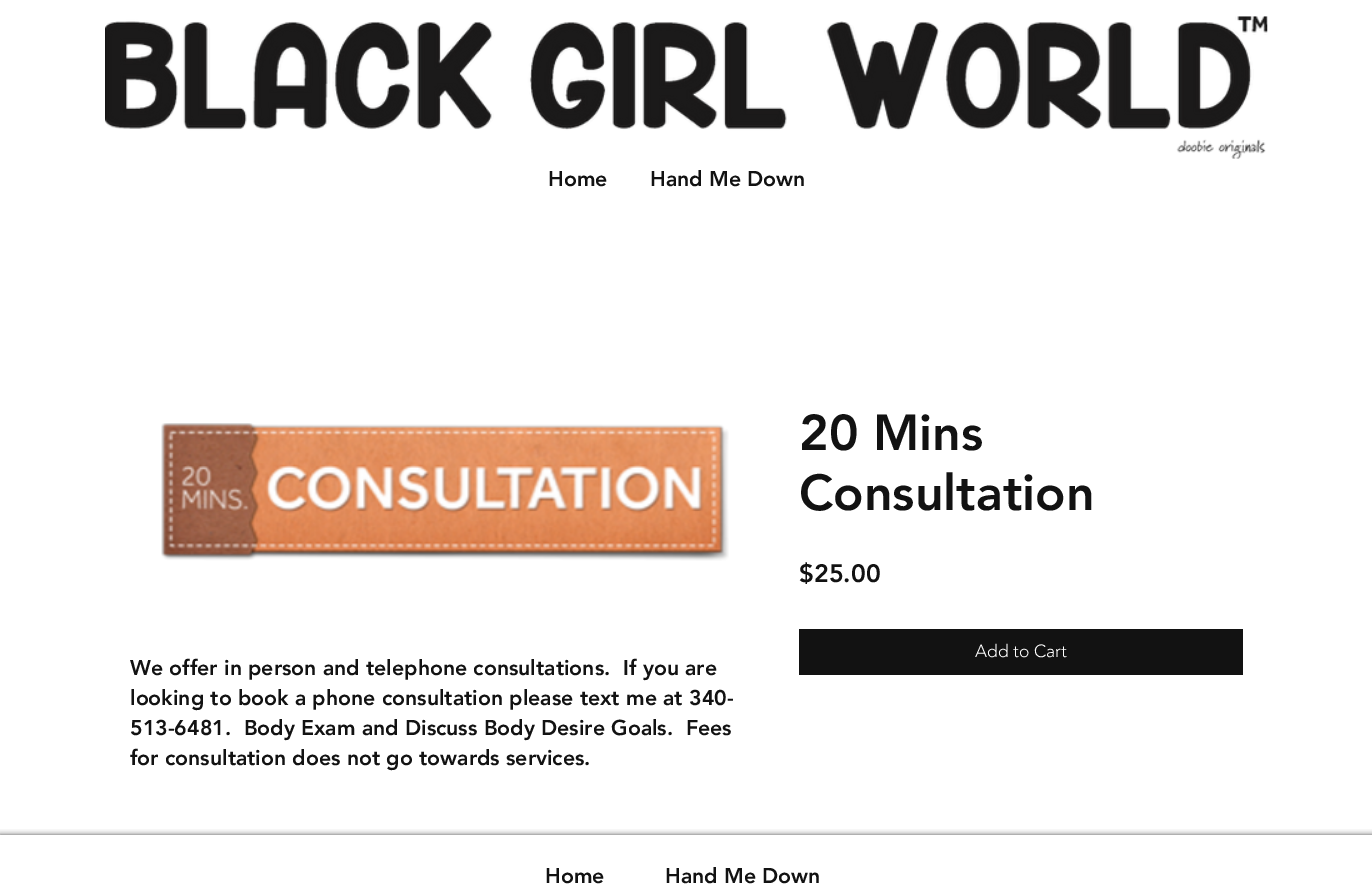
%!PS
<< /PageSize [1372 891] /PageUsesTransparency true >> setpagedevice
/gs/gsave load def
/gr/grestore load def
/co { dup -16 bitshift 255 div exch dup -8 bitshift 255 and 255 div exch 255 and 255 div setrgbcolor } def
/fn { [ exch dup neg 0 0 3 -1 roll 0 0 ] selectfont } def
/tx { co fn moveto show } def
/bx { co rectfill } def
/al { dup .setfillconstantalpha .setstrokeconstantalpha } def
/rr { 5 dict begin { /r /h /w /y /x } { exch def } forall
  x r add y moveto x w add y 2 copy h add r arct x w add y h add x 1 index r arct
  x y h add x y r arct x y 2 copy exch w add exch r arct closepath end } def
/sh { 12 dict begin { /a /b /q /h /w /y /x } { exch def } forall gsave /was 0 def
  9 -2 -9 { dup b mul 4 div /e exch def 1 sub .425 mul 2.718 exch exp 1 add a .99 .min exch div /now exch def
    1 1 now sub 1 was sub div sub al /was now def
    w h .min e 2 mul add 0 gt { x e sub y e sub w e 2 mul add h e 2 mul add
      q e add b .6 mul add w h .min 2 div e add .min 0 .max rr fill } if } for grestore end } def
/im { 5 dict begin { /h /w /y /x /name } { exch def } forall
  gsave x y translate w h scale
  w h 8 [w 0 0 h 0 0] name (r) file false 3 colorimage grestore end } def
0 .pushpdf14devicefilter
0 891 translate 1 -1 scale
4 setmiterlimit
0 0 1372 891 16#FFFFFF bx
(media/1.raw) 105 16 1163 143 im
799 629 444 46 16#121212 bx
(media/2.raw) 161 423 568 138 im
gs
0 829 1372 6 rectclip
16#000000 co
0 835 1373 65 0 3 .7 sh
gr
(Home) 548 186 /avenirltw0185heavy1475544-Black 21.25 16#121212 tx
(Hand Me Down) 650 186 /avenirltw0185heavy1475544-Black 21.25 16#121212 tx
(20 Mins) 799 450 /avenirltw0185heavy1475544-Black 50 16#121212 tx
(Consultation) 799 510 /avenirltw0185heavy1475544-Black 50 16#121212 tx
($25.00) 799 582 /avenirltw0185heavy1475544-Black 25 16#121212 tx
(Add to Cart) 975 657 /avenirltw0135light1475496-Light 17.5 16#FFFFFF tx
(We offer in person and telephone consultations.  If you are) 130 675 /avenirltw0185heavy1475544-Black 21.25 16#121212 tx
(looking to book a phone consultation please text me at 340-) 130 705 /avenirltw0185heavy1475544-Black 21.25 16#121212 tx
(513-6481.  Body Exam and Discuss Body Desire Goals.  Fees) 130 735 /avenirltw0185heavy1475544-Black 21.25 16#121212 tx
(for consultation does not go towards services.) 130 765 /avenirltw0185heavy1475544-Black 21.25 16#121212 tx
(Home) 545 883 /avenirltw0185heavy1475544-Black 21.25 16#121212 tx
(Hand Me Down) 665 883 /avenirltw0185heavy1475544-Black 21.25 16#121212 tx
.poppdf14devicefilter showpage
